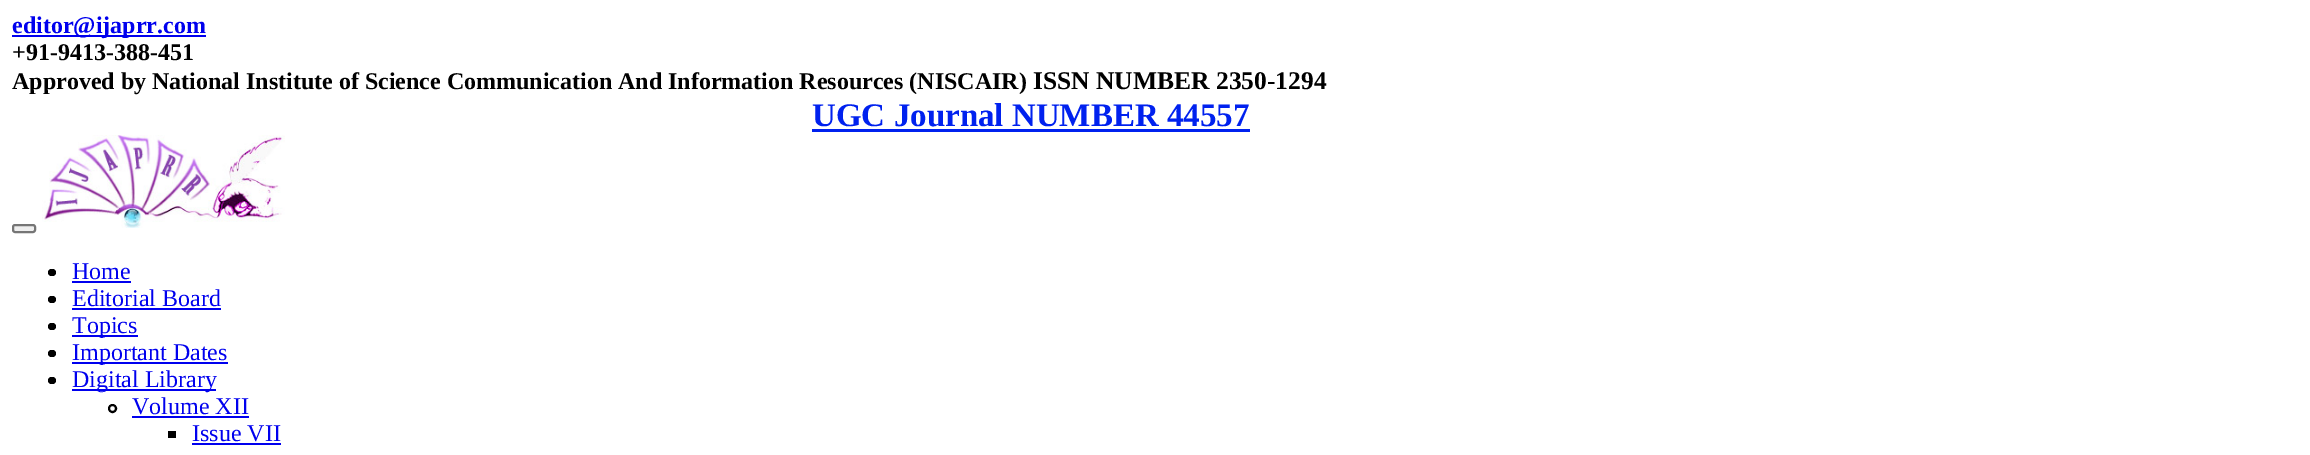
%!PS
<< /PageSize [2310 455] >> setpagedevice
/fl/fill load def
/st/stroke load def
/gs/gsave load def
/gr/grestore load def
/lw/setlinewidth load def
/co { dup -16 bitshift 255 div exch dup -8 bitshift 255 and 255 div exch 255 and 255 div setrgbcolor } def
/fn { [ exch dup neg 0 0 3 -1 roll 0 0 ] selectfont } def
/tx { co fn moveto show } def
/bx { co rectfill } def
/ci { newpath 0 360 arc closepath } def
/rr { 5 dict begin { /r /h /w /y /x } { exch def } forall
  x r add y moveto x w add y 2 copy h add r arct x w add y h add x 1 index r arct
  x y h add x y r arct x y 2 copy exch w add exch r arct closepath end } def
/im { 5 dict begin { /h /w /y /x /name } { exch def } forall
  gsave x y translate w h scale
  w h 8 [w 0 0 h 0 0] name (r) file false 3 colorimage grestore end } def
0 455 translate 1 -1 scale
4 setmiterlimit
0 0 2310 455 16#FFFFFF bx
12 35 194 2 16#0000EE bx
812 129 438 3 16#0021EF bx
16#EFEFEF co
13 225 22 7 2 rr gs fl gr
16#767676 co
2 lw
st
(media/1.raw) 42 135 243 93 im
16#000000 co
48 269 8 7 3.5 rr fl
72 281 59 2 16#0000EE bx
16#000000 co
48 296 8 7 3.5 rr fl
72 308 149 2 16#0000EE bx
16#000000 co
48 323 8 7 3.5 rr fl
72 335 66 2 16#0000EE bx
16#000000 co
48 350 8 7 3.5 rr fl
72 362 156 2 16#0000EE bx
16#000000 co
48 377 8 7 3.5 rr fl
72 389 144 2 16#0000EE bx
16#000000 co
112.5 408.5 3.5 ci st
132 416 117 2 16#0000EE bx
168 431 8 7 16#000000 bx
192 443 89 2 16#0000EE bx
(editor@ijaprr.com) 12 33 /LiberationSerif-Bold 24 16#0000EE tx
(+91-9413-388-451) 12 60 /LiberationSerif-Bold 24 16#000000 tx
(Approved by National Institute of Science Communication And Information Resources \(NISCAIR\)) 12 89 /LiberationSerif-Bold 24 16#000000 tx
(ISSN NUMBER 2350-1294) 1033 89 /LiberationSerif-Bold 25.5 16#000000 tx
(UGC Journal NUMBER 44557) 812 126 /LiberationSerif-Bold 33 16#0021EF tx
(Home) 72 279 /LiberationSerif-Regular 24 16#0000EE tx
(Editorial Board) 72 306 /LiberationSerif-Regular 24 16#0000EE tx
(Topics) 72 333 /LiberationSerif-Regular 24 16#0000EE tx
(Important Dates) 72 360 /LiberationSerif-Regular 24 16#0000EE tx
(Digital Library) 72 387 /LiberationSerif-Regular 24 16#0000EE tx
(Volume XII) 132 414 /LiberationSerif-Regular 24 16#0000EE tx
(Issue VII) 192 441 /LiberationSerif-Regular 24 16#0000EE tx
showpage
